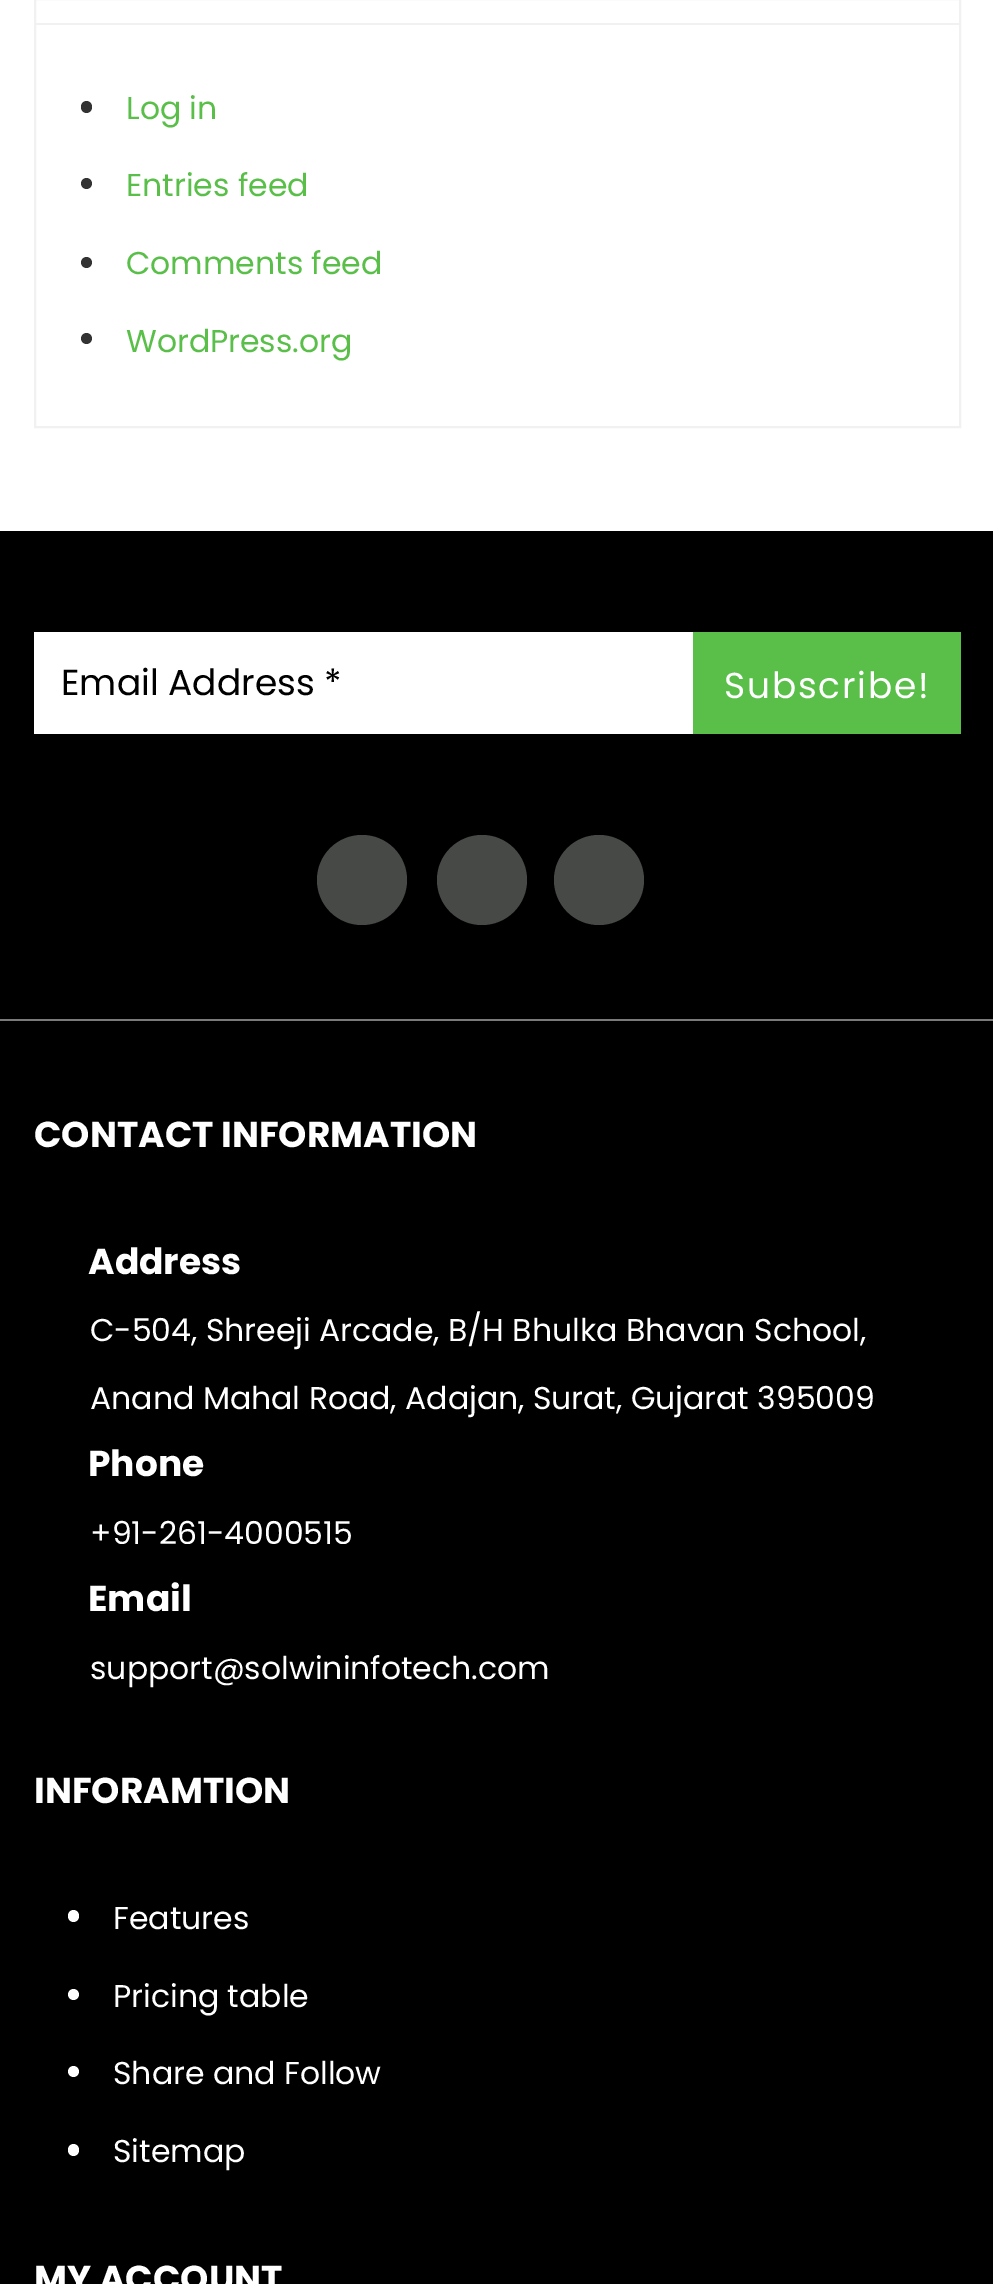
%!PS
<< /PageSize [993 2284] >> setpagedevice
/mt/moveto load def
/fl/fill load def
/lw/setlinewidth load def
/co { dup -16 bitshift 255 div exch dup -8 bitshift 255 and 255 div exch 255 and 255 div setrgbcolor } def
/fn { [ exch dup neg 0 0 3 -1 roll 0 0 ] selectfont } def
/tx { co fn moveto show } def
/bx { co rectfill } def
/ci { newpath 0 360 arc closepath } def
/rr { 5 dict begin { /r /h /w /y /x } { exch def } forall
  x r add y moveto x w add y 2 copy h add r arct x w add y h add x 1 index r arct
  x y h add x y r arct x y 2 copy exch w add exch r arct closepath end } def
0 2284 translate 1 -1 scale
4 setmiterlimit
0 0 993 2284 16#FFFFFF bx
16#F1F1F1 co
2 lw
35 -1 925 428 rectstroke
36 23 923 2 16#F1F1F1 bx
16#333333 co
81 101 11 12 5.5 rr fl
86.5 183.5 5.5 ci fl
86.5 262.5 5.5 ci fl
86.5 338.5 5.5 ci fl
0 531 993 1753 16#000000 bx
0 1019 993 2 16#7A7A7A bx
34 632 659 102 16#FFFFFF bx
693 632 268 102 16#59BF49 bx
16#474947 co
362 880 45 ci fl
482 880 45 ci fl
599 880 45 ci fl
16#FFFFFF co
68 1910 11 12 5.5 rr fl
73.5 1994.5 5.5 ci fl
73.5 2071.5 5.5 ci fl
68 2144 11 12 5.5 rr fl
(Log in) 126 119 /Poppins-Regular 31.5 16#59BF49 tx
(Entries feed) 126 196 /Poppins-Regular 31.5 16#59BF49 tx
(Comments feed) 126 274 /Poppins-Regular 31.5 16#59BF49 tx
(WordPress.org) 126 352 /Poppins-Regular 31.5 16#59BF49 tx
(Email Address *) 61 695 /Poppins-Regular 36 16#000000 tx
16#FFFFFF co
724 698 mt 1.75 0 (Subscribe!) ashow
(CONTACT INFORMATION) 34 1147 /Poppins-Bold 36 16#FFFFFF tx
(Address) 88 1274 /Poppins-Bold 36 16#FFFFFF tx
(C-504, Shreeji Arcade, B/H Bhulka Bhavan School,) 90 1341 /Poppins-Regular 31.5 16#FFFFFF tx
(Anand Mahal Road, Adajan, Surat, Gujarat 395009) 90 1409 /Poppins-Regular 31.5 16#FFFFFF tx
(Phone) 88 1476 /Poppins-Bold 36 16#FFFFFF tx
(+91-261-4000515) 90 1544 /Poppins-Regular 31.5 16#FFFFFF tx
(Email) 88 1611 /Poppins-Bold 36 16#FFFFFF tx
(support@solwininfotech.com) 90 1679 /Poppins-Regular 31.5 16#FFFFFF tx
(INFORAMTION) 34 1803 /Poppins-Bold 36 16#FFFFFF tx
(Features) 113 1929 /Poppins-Regular 31.5 16#FFFFFF tx
(Pricing table) 113 2007 /Poppins-Regular 31.5 16#FFFFFF tx
(Share and Follow) 113 2084 /Poppins-Regular 31.5 16#FFFFFF tx
(Sitemap) 113 2162 /Poppins-Regular 31.5 16#FFFFFF tx
(MY ACCOUNT) 34 2291 /Poppins-Bold 36 16#FFFFFF tx
showpage
